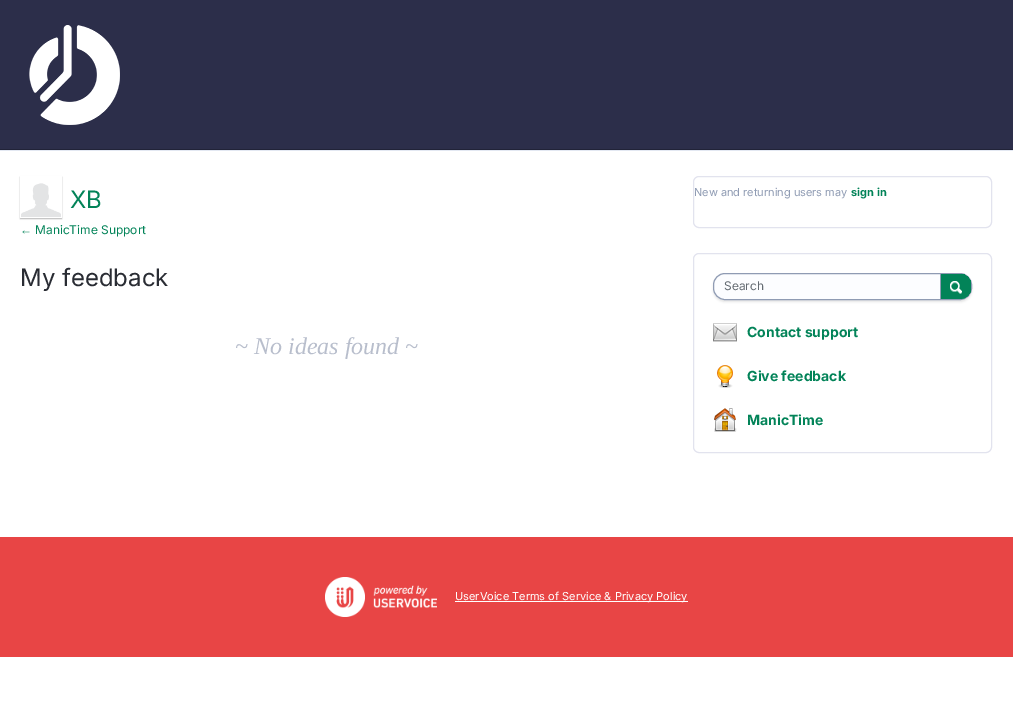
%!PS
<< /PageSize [1013 721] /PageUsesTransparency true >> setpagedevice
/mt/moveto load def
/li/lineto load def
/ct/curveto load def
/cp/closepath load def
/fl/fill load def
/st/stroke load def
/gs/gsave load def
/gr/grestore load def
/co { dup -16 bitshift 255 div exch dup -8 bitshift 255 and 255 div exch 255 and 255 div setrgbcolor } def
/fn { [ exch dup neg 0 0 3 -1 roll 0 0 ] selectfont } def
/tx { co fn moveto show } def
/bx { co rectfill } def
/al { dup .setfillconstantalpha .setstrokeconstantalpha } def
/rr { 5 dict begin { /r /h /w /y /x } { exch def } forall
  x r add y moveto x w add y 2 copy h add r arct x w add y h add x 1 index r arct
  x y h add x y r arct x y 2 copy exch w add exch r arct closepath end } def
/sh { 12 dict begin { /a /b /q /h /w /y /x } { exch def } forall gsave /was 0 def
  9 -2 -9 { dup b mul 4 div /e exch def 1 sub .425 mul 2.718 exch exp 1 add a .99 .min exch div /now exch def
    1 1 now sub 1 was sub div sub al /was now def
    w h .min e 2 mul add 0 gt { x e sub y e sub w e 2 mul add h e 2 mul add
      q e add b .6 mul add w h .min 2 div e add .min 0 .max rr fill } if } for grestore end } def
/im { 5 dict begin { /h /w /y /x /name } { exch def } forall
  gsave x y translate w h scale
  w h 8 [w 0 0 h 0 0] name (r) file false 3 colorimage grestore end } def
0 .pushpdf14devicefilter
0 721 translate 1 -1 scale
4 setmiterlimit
0 0 1013 721 16#FFFFFF bx
0 0 1013 149 16#2C2E4A bx
0 149 1013 1 16#212338 bx
(media/1.raw) 29 25 91 100 im
0 150 1013 1 16#E3E8F2 bx
gs
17 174 mt 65 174 li 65 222 li 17 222 li cp 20 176 mt 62 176 li 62 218 li 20 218 li cp eoclip newpath
16#000000 co
20 177 42 42 0 .5 .25 sh
gr
(media/2.raw) 21 183 40 34 im
16#E2E3EE co
693.5 176.5 298 51 5.5 rr st
693.5 253.5 298 199 5.5 rr st
16#000000 co
713 275 259 27 12 1 .1 sh
16#FCFDFF co
713.5 273.5 258 26 11.5 rr gs fl gr
16#8F9BB3 co
st
gs
714 274 257 25 11 rr clip newpath
16#028358 co
940 273 mt 960 273 li 966.5 273 972 278.5 972 285 ct 972 287 li 972 293.5 966.5 299 960 299 ct 940 299 li cp fl
gr
16#028358 co
960 274 mt 963 274 966 275 968 277 ct 966 275.5 963 274 960 274 ct cp fl
971 287 mt 971 293.5 967 299 960 299 ct 966 299 971 293.5 971 287 ct cp 968 277 mt 969.5 279 971 282 971 285 ct 971 282 970 279 968 277 ct cp eofill
940 274 1 25 16#8F9BB3 bx
(media/3.raw) 950 281 12 13 im
(media/4.raw) 713 323 24 19 im
(media/5.raw) 717 365 16 23 im
(media/6.raw) 714 408 23 24 im
0 537 1013 120 16#E84545 bx
(media/7.raw) 325 577 112 40 im
455 601 233 1 16#FFFFFF bx
(XB) 70 208 /Inter-Regular 24 16#028358 tx
(←) 20 234 /LiberationSerif-Regular 12 16#028358 tx
(ManicTime Support) 35 234 /Inter-Regular 12 16#028358 tx
(My feedback) 20 286 /Inter-Regular 24 16#292C33 tx
(~ No ideas found ~) 235 354 /LiberationSerif-Italic 24 16#B8BECC tx
(New and returning users may) 694 196 /Inter-Regular 11 16#8F9BB3 tx
(sign in) 851 196 /Inter-Bold 11 16#028358 tx
(Search) 724 290 /Inter-Regular 12 16#646B72 tx
(Contact support) 747 337 /Inter-Bold 14 16#028358 tx
(Give feedback) 747 381 /Inter-Bold 14 16#028358 tx
(ManicTime) 747 425 /Inter-Bold 14 16#028358 tx
(UserVoice Terms of Service & Privacy Policy) 455 600 /Inter-Regular 11 16#FFFFFF tx
.poppdf14devicefilter showpage
